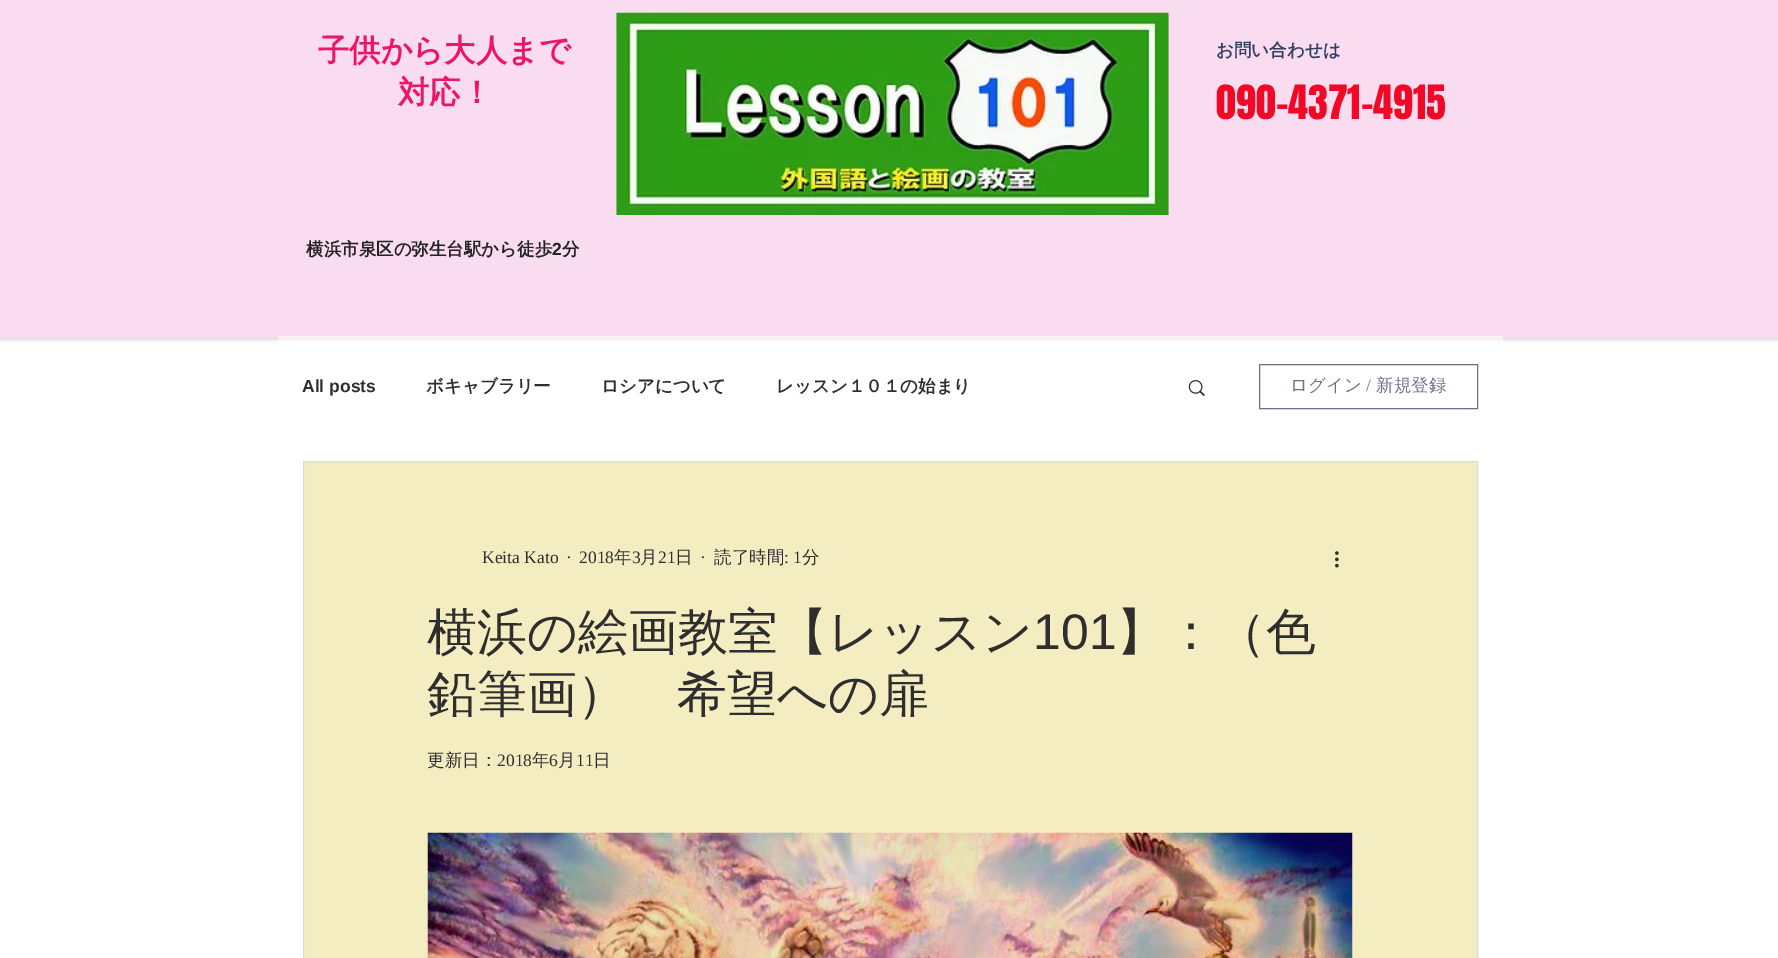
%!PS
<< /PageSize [1778 958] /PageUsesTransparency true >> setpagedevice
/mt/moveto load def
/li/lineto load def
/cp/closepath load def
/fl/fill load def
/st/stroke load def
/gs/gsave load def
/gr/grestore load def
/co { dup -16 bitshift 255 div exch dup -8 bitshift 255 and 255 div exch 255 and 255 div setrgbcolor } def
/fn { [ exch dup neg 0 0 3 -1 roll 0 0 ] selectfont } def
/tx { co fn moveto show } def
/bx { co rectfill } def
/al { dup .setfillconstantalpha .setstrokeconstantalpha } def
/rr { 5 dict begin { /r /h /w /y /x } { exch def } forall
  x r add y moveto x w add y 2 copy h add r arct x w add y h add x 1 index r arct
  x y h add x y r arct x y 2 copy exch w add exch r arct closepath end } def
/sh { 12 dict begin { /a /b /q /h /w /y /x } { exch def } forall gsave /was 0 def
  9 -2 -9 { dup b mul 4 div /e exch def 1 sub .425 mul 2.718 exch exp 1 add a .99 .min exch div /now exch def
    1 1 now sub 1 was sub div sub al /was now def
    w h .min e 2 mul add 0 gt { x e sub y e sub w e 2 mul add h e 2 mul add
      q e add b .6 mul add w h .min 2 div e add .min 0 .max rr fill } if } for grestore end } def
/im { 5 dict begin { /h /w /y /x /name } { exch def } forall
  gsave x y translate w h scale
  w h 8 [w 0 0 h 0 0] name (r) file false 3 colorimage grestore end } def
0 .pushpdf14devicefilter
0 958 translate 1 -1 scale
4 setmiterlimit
0 0 1778 958 16#FFFFFF bx
16#000000 co
0 0 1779 336 0 3 .7 sh
0 0 1778 338 16#FADCF0 bx
(media/1.raw) 616 12 553 203 im
0.56 al
278 336 1225 6 16#FFFFFF bx
1 al
(media/2.raw) 1188 380 17 17 im
16#69718B co
1259.5 364.5 218 44 rectstroke
16#F4EDC2 co
303.5 461.5 mt 1477.5 461.5 li 1477.5 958.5 li 303.5 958.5 li cp gs fl gr
16#DFDCC7 co
st
(media/3.raw) 1335 551 4 17 im
(media/4.raw) 427 832 926 126 im
(子供から大人まで) 318 61 /WenQuanYiZenHei-Bold 31.25 16#ED1566 tx
(対応！) 398 103 /WenQuanYiZenHei-Bold 31.25 16#ED1566 tx
(お問い合わせは) 1216 56 /WenQuanYiZenHei-Bold 17.5 16#343F64 tx
(090-4371-4915) 1216 119 /Anton-Regular 40 16#F20727 tx
(横浜市泉区の弥生台駅から徒歩) 306 255 /WenQuanYiZenHei-Bold 17.5 16#242323 tx
(2) 552 255 /LiberationSans-Bold 17.5 16#242323 tx
(分) 562 255 /WenQuanYiZenHei-Bold 17.5 16#242323 tx
(All posts) 302 392 /LiberationSans-Bold 17.5 16#2F2E2E tx
(ボキャブラリー) 426 392 /WenQuanYiZenHei-Bold 17.5 16#2F2E2E tx
(ロシアについて) 601 392 /WenQuanYiZenHei-Bold 17.5 16#2F2E2E tx
(レッスン１０１の始まり) 776 392 /WenQuanYiZenHei-Bold 17.5 16#2F2E2E tx
(ログイン) 1290 391 /WenQuanYiZenHei-Medium 17.5 16#69718B tx
(/) 1366 391 /LiberationSerif-Regular 17.5 16#69718B tx
(新規登録) 1376 391 /WenQuanYiZenHei-Medium 17.5 16#69718B tx
(Keita Kato) 482 563 /LiberationSerif-Regular 17.5 16#2F2E2E tx
(·) 566 563 /LiberationSerif-Regular 17.5 16#2F2E2E tx
(2018) 579 563 /LiberationSerif-Regular 17.5 16#2F2E2E tx
(年) 614 563 /WenQuanYiZenHei-Medium 17.5 16#2F2E2E tx
(3) 632 563 /LiberationSerif-Regular 17.5 16#2F2E2E tx
(月) 640 563 /WenQuanYiZenHei-Medium 17.5 16#2F2E2E tx
(21) 658 563 /LiberationSerif-Regular 17.5 16#2F2E2E tx
(日) 675 563 /WenQuanYiZenHei-Medium 17.5 16#2F2E2E tx
(·) 700 563 /LiberationSerif-Regular 17.5 16#2F2E2E tx
(読了時間) 714 563 /WenQuanYiZenHei-Medium 17.5 16#2F2E2E tx
(: 1) 784 563 /LiberationSerif-Regular 17.5 16#2F2E2E tx
(分) 802 563 /WenQuanYiZenHei-Medium 17.5 16#2F2E2E tx
(横浜の絵画教室【レッスン) 427 649 /WenQuanYiZenHei-Medium 50 16#2F2E2E tx
(101) 1033 649 /LiberationSans-Regular 50 16#2F2E2E tx
(】：（色) 1116 649 /WenQuanYiZenHei-Medium 50 16#2F2E2E tx
(鉛筆画）　希望への扉) 427 711 /WenQuanYiZenHei-Medium 50 16#2F2E2E tx
(更新日：) 427 766 /WenQuanYiZenHei-Medium 17.5 16#2F2E2E tx
(2018) 497 766 /LiberationSerif-Regular 17.5 16#2F2E2E tx
(年) 532 766 /WenQuanYiZenHei-Medium 17.5 16#2F2E2E tx
(6) 549 766 /LiberationSerif-Regular 17.5 16#2F2E2E tx
(月) 558 766 /WenQuanYiZenHei-Medium 17.5 16#2F2E2E tx
(11) 576 766 /LiberationSerif-Regular 17.5 16#2F2E2E tx
(日) 593 766 /WenQuanYiZenHei-Medium 17.5 16#2F2E2E tx
.poppdf14devicefilter showpage
